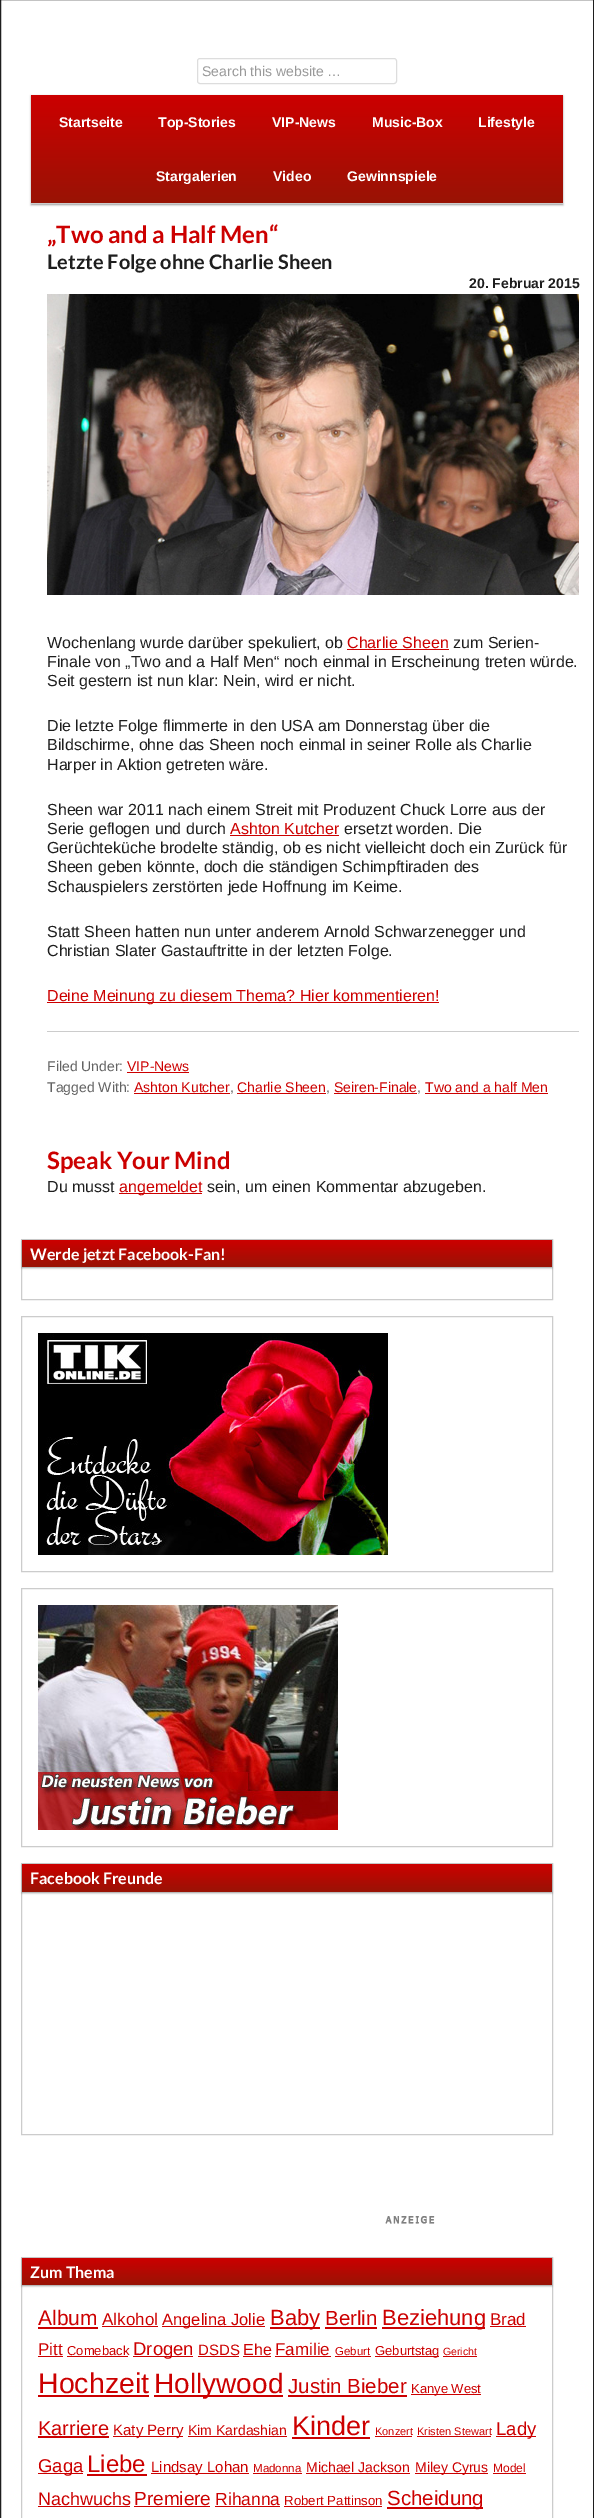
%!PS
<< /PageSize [594 2518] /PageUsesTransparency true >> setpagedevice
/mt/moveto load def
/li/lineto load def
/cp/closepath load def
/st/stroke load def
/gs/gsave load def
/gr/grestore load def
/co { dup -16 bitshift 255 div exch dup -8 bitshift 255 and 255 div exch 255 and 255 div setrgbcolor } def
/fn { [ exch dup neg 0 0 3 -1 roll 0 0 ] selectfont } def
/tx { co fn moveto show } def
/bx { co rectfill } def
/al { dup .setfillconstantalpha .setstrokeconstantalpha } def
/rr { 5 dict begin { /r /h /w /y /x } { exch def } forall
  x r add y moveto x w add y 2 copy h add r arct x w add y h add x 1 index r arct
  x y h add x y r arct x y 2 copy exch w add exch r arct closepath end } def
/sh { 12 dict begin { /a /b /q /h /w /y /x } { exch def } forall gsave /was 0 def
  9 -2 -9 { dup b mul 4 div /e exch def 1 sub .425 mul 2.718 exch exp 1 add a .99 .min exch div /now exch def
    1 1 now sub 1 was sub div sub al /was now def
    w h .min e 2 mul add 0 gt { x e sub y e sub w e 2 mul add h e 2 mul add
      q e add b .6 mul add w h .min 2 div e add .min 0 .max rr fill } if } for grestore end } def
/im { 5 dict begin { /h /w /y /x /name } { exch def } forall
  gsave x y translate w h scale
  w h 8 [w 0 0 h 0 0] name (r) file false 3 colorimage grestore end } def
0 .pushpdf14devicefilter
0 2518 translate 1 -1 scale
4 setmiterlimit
0 0 594 2518 16#FFFFFF bx
16#1E1E1E co
.5 -.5 593 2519 rectstroke
16#DDDDDD co
197.5 58.5 199 25 2.5 rr st
16#000000 co
31 96 532 109 0 1 .4 sh
gs 31 95 mt 563 95 li 563 203 li 31 203 li cp clip newpath
<< /ShadingType 2 /ColorSpace /DeviceRGB /Coords [297 95 297 203] /Extend [true true] /Function << /FunctionType 2 /Domain [0 1] /C0 [.8 0 0] /C1 [.6 .075 .02] /N 1 >> >> shfill gr
31 203 532 1 16#CCCCCC bx
(media/1.raw) 47 294 532 301 im
347 649 102 1 16#CC0000 bx
230 835 109 1 16#CC0000 bx
47 1002 392 1 16#CC0000 bx
47 1031 532 1 16#CCCCCC bx
127 1072 62 1 16#CC0000 bx
134 1093 96 1 16#CC0000 bx
237 1093 89 1 16#CC0000 bx
334 1093 83 1 16#CC0000 bx
425 1093 123 1 16#CC0000 bx
119 1193 83 1 16#CC0000 bx
16#CCCCCC co
21.5 1239.5 531 60 rectstroke
16#000000 co
22 1241 530 27 0 1 .4 sh
gs 22 1240 mt 552 1240 li 552 1267 li 22 1267 li cp clip newpath
<< /ShadingType 2 /ColorSpace /DeviceRGB /Coords [287 1240 287 1267] /Extend [true true] /Function << /FunctionType 2 /Domain [0 1] /C0 [.8 0 0] /C1 [.6 .075 .02] /N 1 >> >> shfill gr
16#CCCCCC co
21.5 1316.5 531 255 rectstroke
(media/2.raw) 38 1333 350 222 im
21.5 1588.5 531 258 rectstroke
(media/3.raw) 38 1605 300 225 im
21.5 1863.5 531 271 rectstroke
16#000000 co
22 1865 530 28 0 1 .4 sh
gs 22 1864 mt 552 1864 li 552 1892 li 22 1892 li cp clip newpath
<< /ShadingType 2 /ColorSpace /DeviceRGB /Coords [287 1864 287 1892] /Extend [true true] /Function << /FunctionType 2 /Domain [0 1] /C0 [.8 0 0] /C1 [.6 .075 .02] /N 1 >> >> shfill gr
(media/4.raw) 385 2216 50 8 im
16#CCCCCC co
21.5 2257.5 531 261 rectstroke
16#000000 co
22 2259 530 27 0 1 .4 sh
gs 22 2258 mt 552 2258 li 552 2285 li 22 2285 li cp clip newpath
<< /ShadingType 2 /ColorSpace /DeviceRGB /Coords [287 2258 287 2285] /Extend [true true] /Function << /FunctionType 2 /Domain [0 1] /C0 [.8 0 0] /C1 [.6 .075 .02] /N 1 >> >> shfill gr
38 2327 60 2 16#CC0000 bx
102 2326 56 1 16#CC0000 bx
162 2326 103 1 16#CC0000 bx
270 2327 50 2 16#CC0000 bx
325 2327 52 2 16#CC0000 bx
382 2327 103 2 16#CC0000 bx
490 2326 36 1 16#CC0000 bx
38 2356 25 1 16#CC0000 bx
67 2356 61 1 16#CC0000 bx
133 2356 60 1 16#CC0000 bx
198 2356 41 1 16#CC0000 bx
243 2356 28 1 16#CC0000 bx
275 2356 56 1 16#CC0000 bx
335 2356 36 1 16#CC0000 bx
375 2356 64 1 16#CC0000 bx
443 2356 34 1 16#CC0000 bx
38 2395 111 2 16#CC0000 bx
154 2395 129 2 16#CC0000 bx
288 2395 119 2 16#CC0000 bx
411 2394 70 1 16#CC0000 bx
38 2436 71 2 16#CC0000 bx
113 2436 70 1 16#CC0000 bx
188 2436 99 1 16#CC0000 bx
292 2437 78 2 16#CC0000 bx
375 2436 37 1 16#CC0000 bx
417 2436 74 1 16#CC0000 bx
496 2436 40 1 16#CC0000 bx
38 2473 45 1 16#CC0000 bx
87 2474 60 2 16#CC0000 bx
151 2473 98 1 16#CC0000 bx
253 2473 49 1 16#CC0000 bx
306 2473 104 1 16#CC0000 bx
415 2473 73 1 16#CC0000 bx
493 2473 33 1 16#CC0000 bx
38 2506 92 1 16#CC0000 bx
134 2506 76 1 16#CC0000 bx
215 2506 65 1 16#CC0000 bx
284 2506 98 1 16#CC0000 bx
387 2507 96 2 16#CC0000 bx
(Search this website …) 202 76 /LiberationSans-Regular 14 16#999999 tx
(Startseite) 59 127 /LiberationSans-Bold 14 16#FFFFFF tx
(Top-Stories) 158 127 /LiberationSans-Bold 14 16#FFFFFF tx
(VIP-News) 272 127 /LiberationSans-Bold 14 16#FFFFFF tx
(Music-Box) 372 127 /LiberationSans-Bold 14 16#FFFFFF tx
(Lifestyle) 478 127 /LiberationSans-Bold 14 16#FFFFFF tx
(Stargalerien) 156 181 /LiberationSans-Bold 14 16#FFFFFF tx
(Video) 273 181 /LiberationSans-Bold 14 16#FFFFFF tx
(Gewinnspiele) 347 181 /LiberationSans-Bold 14 16#FFFFFF tx
(„Two and a Half Men“) 47 243 /Lato-Bold 24 16#CC0000 tx
(Letzte Folge ohne Charlie Sheen) 47 269 /Lato-Bold 20 16#1E1E1E tx
(20. Februar 2015) 469 288 /LiberationSans-Bold 14 16#1E1E1E tx
(Wochenlang wurde darüber spekuliert, ob) 47 648 /LiberationSans-Regular 16 16#1E1E1E tx
(Charlie Sheen) 347 648 /LiberationSans-Regular 16 16#CC0000 tx
(zum Serien-) 453 648 /LiberationSans-Regular 16 16#1E1E1E tx
(Finale von „Two and a Half Men“ noch einmal in Erscheinung treten würde.) 47 667 /LiberationSans-Regular 16 16#1E1E1E tx
(Seit gestern ist nun klar: Nein, wird er nicht.) 47 686 /LiberationSans-Regular 16 16#1E1E1E tx
(Die letzte Folge flimmerte in den USA am Donnerstag über die) 47 731 /LiberationSans-Regular 16 16#1E1E1E tx
(Bildschirme, ohne das Sheen noch einmal in seiner Rolle als Charlie) 47 750 /LiberationSans-Regular 16 16#1E1E1E tx
(Harper in Aktion getreten wäre.) 47 770 /LiberationSans-Regular 16 16#1E1E1E tx
(Sheen war 2011 nach einem Streit mit Produzent Chuck Lorre aus der) 47 815 /LiberationSans-Regular 16 16#1E1E1E tx
(Serie geflogen und durch) 47 834 /LiberationSans-Regular 16 16#1E1E1E tx
(Ashton Kutcher) 230 834 /LiberationSans-Regular 16 16#CC0000 tx
(ersetzt worden. Die) 344 834 /LiberationSans-Regular 16 16#1E1E1E tx
(Gerüchteküche brodelte ständig, ob es nicht vielleicht doch ein Zurück für) 47 853 /LiberationSans-Regular 16 16#1E1E1E tx
(Sheen geben könnte, doch die ständigen Schimpftiraden des) 47 872 /LiberationSans-Regular 16 16#1E1E1E tx
(Schauspielers zerstörten jede Hoffnung im Keime.) 47 892 /LiberationSans-Regular 16 16#1E1E1E tx
(Statt Sheen hatten nun unter anderem Arnold Schwarzenegger und) 47 937 /LiberationSans-Regular 16 16#1E1E1E tx
(Christian Slater Gastauftritte in der letzten Folge.) 47 956 /LiberationSans-Regular 16 16#1E1E1E tx
(Deine Meinung zu diesem Thema? Hier kommentieren!) 47 1001 /LiberationSans-Regular 16 16#CC0000 tx
(Filed Under:) 47 1071 /LiberationSans-Regular 14 16#636363 tx
(VIP-News) 127 1071 /LiberationSans-Regular 14 16#CC0000 tx
(Tagged With:) 47 1092 /LiberationSans-Regular 14 16#636363 tx
(Ashton Kutcher) 134 1092 /LiberationSans-Regular 14 16#CC0000 tx
(,) 230 1092 /LiberationSans-Regular 14 16#636363 tx
(Charlie Sheen) 237 1092 /LiberationSans-Regular 14 16#CC0000 tx
(,) 326 1092 /LiberationSans-Regular 14 16#636363 tx
(Seiren-Finale) 334 1092 /LiberationSans-Regular 14 16#CC0000 tx
(,) 417 1092 /LiberationSans-Regular 14 16#636363 tx
(Two and a half Men) 425 1092 /LiberationSans-Regular 14 16#CC0000 tx
(Speak Your Mind) 47 1169 /Lato-Bold 24 16#CC0000 tx
(Du musst) 47 1192 /LiberationSans-Regular 16 16#1E1E1E tx
(angemeldet) 119 1192 /LiberationSans-Regular 16 16#CC0000 tx
(sein, um einen Kommentar abzugeben.) 207 1192 /LiberationSans-Regular 16 16#1E1E1E tx
(Werde jetzt Facebook-Fan!) 30 1260 /Lato-Bold 16 16#FFFFFF tx
(Facebook Freunde) 30 1884 /Lato-Bold 16 16#FFFFFF tx
(Zum Thema) 30 2278 /Lato-Bold 16 16#FFFFFF tx
(Album) 38 2325 /LiberationSans-Regular 21 16#CC0000 tx
(Alkohol) 102 2325 /LiberationSans-Regular 17 16#CC0000 tx
(Angelina Jolie) 162 2325 /LiberationSans-Regular 16.5 16#CC0000 tx
(Baby) 270 2325 /LiberationSans-Regular 22 16#CC0000 tx
(Berlin) 325 2325 /LiberationSans-Regular 20.5 16#CC0000 tx
(Beziehung) 382 2325 /LiberationSans-Regular 22 16#CC0000 tx
(Brad) 490 2325 /LiberationSans-Regular 17 16#CC0000 tx
(Pitt) 38 2355 /LiberationSans-Regular 17 16#CC0000 tx
(Comeback) 67 2355 /LiberationSans-Regular 13 16#CC0000 tx
(Drogen) 133 2355 /LiberationSans-Regular 18.5 16#CC0000 tx
(DSDS) 198 2355 /LiberationSans-Regular 15 16#CC0000 tx
(Ehe) 243 2355 /LiberationSans-Regular 16 16#CC0000 tx
(Familie) 275 2355 /LiberationSans-Regular 17 16#CC0000 tx
(Geburt) 335 2355 /LiberationSans-Regular 11.5 16#CC0000 tx
(Geburtstag) 375 2355 /LiberationSans-Regular 13 16#CC0000 tx
(Gericht) 443 2355 /LiberationSans-Regular 10.5 16#CC0000 tx
(Hochzeit) 38 2393 /LiberationSans-Regular 28.5 16#CC0000 tx
(Hollywood) 154 2393 /LiberationSans-Regular 28 16#CC0000 tx
(Justin Bieber) 288 2393 /LiberationSans-Regular 20.5 16#CC0000 tx
(Kanye West) 411 2393 /LiberationSans-Regular 13 16#CC0000 tx
(Karriere) 38 2435 /LiberationSans-Regular 20 16#CC0000 tx
(Katy Perry) 113 2435 /LiberationSans-Regular 15 16#CC0000 tx
(Kim Kardashian) 188 2435 /LiberationSans-Regular 14 16#CC0000 tx
(Kinder) 292 2435 /LiberationSans-Regular 27 16#CC0000 tx
(Konzert) 375 2435 /LiberationSans-Regular 11 16#CC0000 tx
(Kristen Stewart) 417 2435 /LiberationSans-Regular 11 16#CC0000 tx
(Lady) 496 2435 /LiberationSans-Regular 18.5 16#CC0000 tx
(Gaga) 38 2472 /LiberationSans-Regular 18.5 16#CC0000 tx
(Liebe) 87 2472 /LiberationSans-Regular 24 16#CC0000 tx
(Lindsay Lohan) 151 2472 /LiberationSans-Regular 15 16#CC0000 tx
(Madonna) 253 2472 /LiberationSans-Regular 11.5 16#CC0000 tx
(Michael Jackson) 306 2472 /LiberationSans-Regular 14 16#CC0000 tx
(Miley Cyrus) 415 2472 /LiberationSans-Regular 14 16#CC0000 tx
(Model) 493 2472 /LiberationSans-Regular 12 16#CC0000 tx
(Nachwuchs) 38 2505 /LiberationSans-Regular 18 16#CC0000 tx
(Premiere) 134 2505 /LiberationSans-Regular 19 16#CC0000 tx
(Rihanna) 215 2505 /LiberationSans-Regular 17.5 16#CC0000 tx
(Robert Pattinson) 284 2505 /LiberationSans-Regular 13.25 16#CC0000 tx
(Scheidung) 387 2505 /LiberationSans-Regular 20.5 16#CC0000 tx
.poppdf14devicefilter showpage
